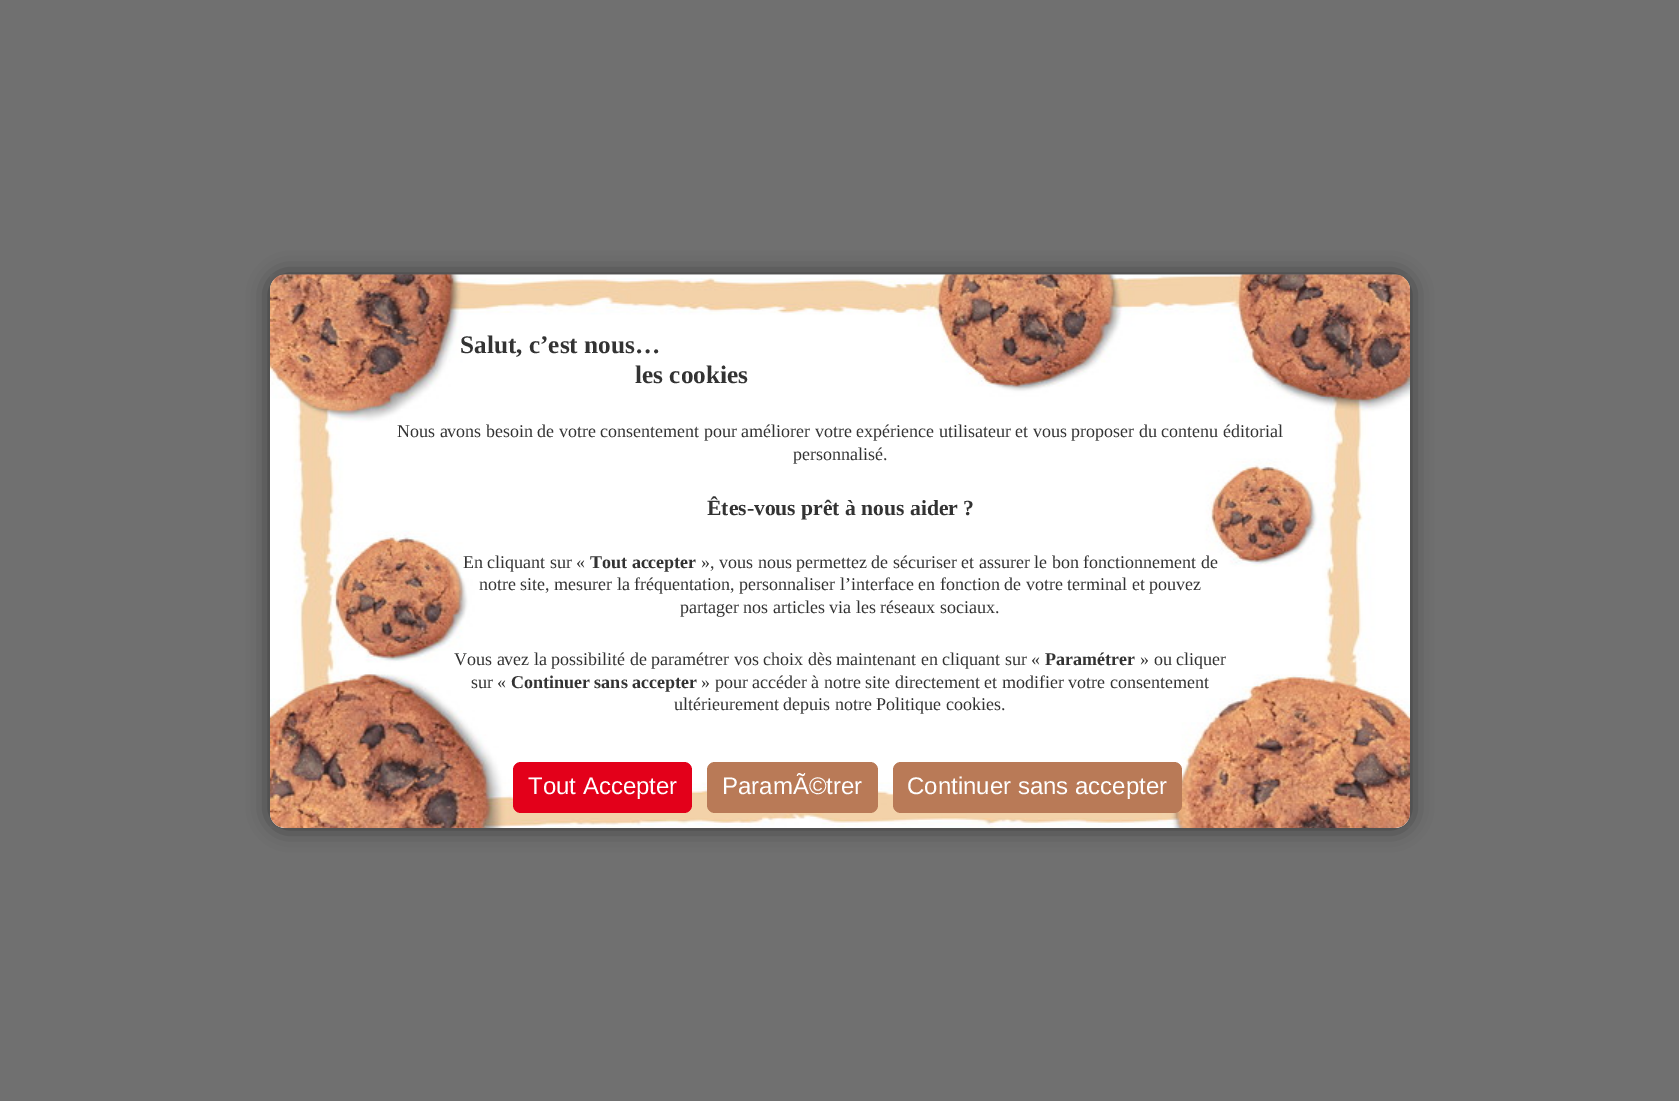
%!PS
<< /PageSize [1679 1101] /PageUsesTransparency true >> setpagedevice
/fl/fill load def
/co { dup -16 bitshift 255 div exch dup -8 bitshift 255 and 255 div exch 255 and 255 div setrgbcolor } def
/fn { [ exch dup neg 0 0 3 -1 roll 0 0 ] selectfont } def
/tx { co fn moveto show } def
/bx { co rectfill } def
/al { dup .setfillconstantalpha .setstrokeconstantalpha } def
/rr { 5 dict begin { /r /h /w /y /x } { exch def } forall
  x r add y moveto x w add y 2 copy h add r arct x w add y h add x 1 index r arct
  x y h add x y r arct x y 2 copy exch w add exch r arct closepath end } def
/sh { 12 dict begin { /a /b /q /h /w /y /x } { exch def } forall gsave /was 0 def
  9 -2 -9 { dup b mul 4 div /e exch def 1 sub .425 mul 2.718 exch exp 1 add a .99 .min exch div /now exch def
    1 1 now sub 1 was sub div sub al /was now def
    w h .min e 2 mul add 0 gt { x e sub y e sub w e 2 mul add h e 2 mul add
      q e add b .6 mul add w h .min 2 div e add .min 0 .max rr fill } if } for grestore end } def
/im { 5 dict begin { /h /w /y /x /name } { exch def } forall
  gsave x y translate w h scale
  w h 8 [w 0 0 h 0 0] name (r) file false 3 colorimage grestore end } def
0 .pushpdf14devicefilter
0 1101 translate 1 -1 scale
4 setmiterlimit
0 0 1679 1101 16#707070 bx
16#333333 co
270 275 1140 553 15 11 1 sh
16#FFFFFF co
270 275 1140 553 15 rr fl
(media/1.raw) 270 274 1140 554 im
16#E3001A co
513 762 179 51 8 rr fl
16#B97A57 co
707 762 171 51 8 rr fl
893 762 289 51 8 rr fl
(Salut, c’est nous…) 460 353 /LiberationSerif-Bold 25.25 16#333333 tx
(les cookies) 635 383 /LiberationSerif-Bold 25.25 16#333333 tx
(Nous avons besoin de votre consentement pour améliorer votre expérience utilisateur et vous proposer du contenu éditorial) 397 437 /LiberationSerif-Regular 18 16#333333 tx
(personnalisé.) 793 460 /LiberationSerif-Regular 18 16#333333 tx
(Êtes-vous prêt à nous aider ?) 707 515 /LiberationSerif-Bold 21.6 16#333333 tx
(En cliquant sur «) 463 568 /LiberationSerif-Regular 18 16#333333 tx
(Tout accepter) 590 568 /LiberationSerif-Bold 18 16#333333 tx
(», vous nous permettez de sécuriser et assurer le bon fonctionnement de) 701 568 /LiberationSerif-Regular 18 16#333333 tx
(notre site, mesurer la fréquentation, personnaliser l’interface en fonction de votre terminal et pouvez) 479 590 /LiberationSerif-Regular 18 16#333333 tx
(partager nos articles via les réseaux sociaux.) 680 613 /LiberationSerif-Regular 18 16#333333 tx
(Vous avez la possibilité de paramétrer vos choix dès maintenant en cliquant sur «) 454 665 /LiberationSerif-Regular 18 16#333333 tx
(Paramétrer) 1045 665 /LiberationSerif-Bold 18 16#333333 tx
(» ou cliquer) 1140 665 /LiberationSerif-Regular 18 16#333333 tx
(sur «) 471 688 /LiberationSerif-Regular 18 16#333333 tx
(Continuer sans accepter) 511 688 /LiberationSerif-Bold 18 16#333333 tx
(» pour accéder à notre site directement et modifier votre consentement) 701 688 /LiberationSerif-Regular 18 16#333333 tx
(ultérieurement depuis notre Politique cookies.) 674 710 /LiberationSerif-Regular 18 16#333333 tx
(Tout Accepter) 528 794 /LiberationSans-Regular 24 16#FFFFFF tx
(ParamÃ©trer) 722 794 /LiberationSans-Regular 24 16#FFFFFF tx
(Continuer sans accepter) 907 794 /LiberationSans-Regular 24 16#FFFFFF tx
.poppdf14devicefilter showpage
